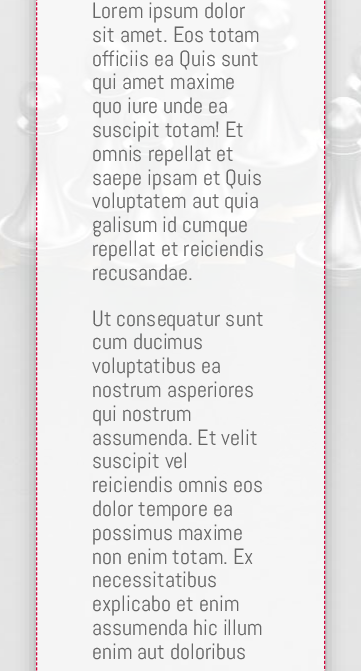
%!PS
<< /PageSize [361 671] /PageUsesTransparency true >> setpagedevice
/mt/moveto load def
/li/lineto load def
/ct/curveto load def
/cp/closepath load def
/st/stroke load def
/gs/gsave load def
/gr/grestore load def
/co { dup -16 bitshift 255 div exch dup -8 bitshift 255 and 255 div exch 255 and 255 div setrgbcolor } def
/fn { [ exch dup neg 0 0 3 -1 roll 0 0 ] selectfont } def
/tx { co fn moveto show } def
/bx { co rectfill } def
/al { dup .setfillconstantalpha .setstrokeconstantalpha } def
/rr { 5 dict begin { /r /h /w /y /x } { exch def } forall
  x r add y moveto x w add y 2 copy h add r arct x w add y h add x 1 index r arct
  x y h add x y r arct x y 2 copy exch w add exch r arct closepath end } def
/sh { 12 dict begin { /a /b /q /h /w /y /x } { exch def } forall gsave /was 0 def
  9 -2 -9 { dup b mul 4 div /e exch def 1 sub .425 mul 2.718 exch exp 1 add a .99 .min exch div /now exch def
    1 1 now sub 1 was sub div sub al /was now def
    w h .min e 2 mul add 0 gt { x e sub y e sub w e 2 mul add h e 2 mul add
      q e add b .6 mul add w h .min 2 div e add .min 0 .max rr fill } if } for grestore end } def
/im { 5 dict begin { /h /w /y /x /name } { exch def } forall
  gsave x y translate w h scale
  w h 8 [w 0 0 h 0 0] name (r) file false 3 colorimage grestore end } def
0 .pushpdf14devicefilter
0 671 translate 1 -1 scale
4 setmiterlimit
0 0 361 671 16#FFFFFF bx
(media/1.raw) 0 0 361 671 im
gs
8 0 mt 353 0 li 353 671 li 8 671 li cp 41 -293 mt 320 -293 li 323 -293 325 -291 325 -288 ct 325 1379 li 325 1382 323 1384 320 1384 ct 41 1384 li 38 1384 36 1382 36 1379 ct 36 -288 li 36 -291 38 -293 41 -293 ct cp eoclip newpath
16#000000 co
36 -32 289 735 5 9 .3 sh
gr
0.64 al
36 0 289 671 16#FFFFFF bx
1 al
16#D2043B co
[3 2] 0 setdash
41 -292.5 mt 320 -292.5 li 322.5 -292.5 324.5 -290.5 324.5 -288 ct 324.5 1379 li 324.5 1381.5 322.5 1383.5 320 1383.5 ct 41 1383.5 li 38.5 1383.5 36.5 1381.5 36.5 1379 ct 36.5 -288 li 36.5 -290.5 38.5 -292.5 41 -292.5 ct cp st
(Lorem ipsum dolor) 92 18 /Abel-Regular 22 16#666666 tx
(sit amet. Eos totam) 92 42 /Abel-Regular 22 16#666666 tx
(officiis ea Quis sunt) 92 66 /Abel-Regular 22 16#666666 tx
(qui amet maxime) 92 89 /Abel-Regular 22 16#666666 tx
(quo iure unde ea) 92 113 /Abel-Regular 22 16#666666 tx
(suscipit totam! Et) 92 137 /Abel-Regular 22 16#666666 tx
(omnis repellat et) 92 161 /Abel-Regular 22 16#666666 tx
(saepe ipsam et Quis) 92 185 /Abel-Regular 22 16#666666 tx
(voluptatem aut quia) 92 208 /Abel-Regular 22 16#666666 tx
(galisum id cumque) 92 232 /Abel-Regular 22 16#666666 tx
(repellat et reiciendis) 92 256 /Abel-Regular 22 16#666666 tx
(recusandae.) 92 280 /Abel-Regular 22 16#666666 tx
(Ut consequatur sunt) 92 326 /Abel-Regular 22 16#666666 tx
(cum ducimus) 92 349 /Abel-Regular 22 16#666666 tx
(voluptatibus ea) 92 373 /Abel-Regular 22 16#666666 tx
(nostrum asperiores) 92 397 /Abel-Regular 22 16#666666 tx
(qui nostrum) 92 421 /Abel-Regular 22 16#666666 tx
(assumenda. Et velit) 92 445 /Abel-Regular 22 16#666666 tx
(suscipit vel) 92 468 /Abel-Regular 22 16#666666 tx
(reiciendis omnis eos) 92 492 /Abel-Regular 22 16#666666 tx
(dolor tempore ea) 92 516 /Abel-Regular 22 16#666666 tx
(possimus maxime) 92 540 /Abel-Regular 22 16#666666 tx
(non enim totam. Ex) 92 564 /Abel-Regular 22 16#666666 tx
(necessitatibus) 92 587 /Abel-Regular 22 16#666666 tx
(explicabo et enim) 92 611 /Abel-Regular 22 16#666666 tx
(assumenda hic illum) 92 635 /Abel-Regular 22 16#666666 tx
(enim aut doloribus) 92 659 /Abel-Regular 22 16#666666 tx
.poppdf14devicefilter showpage
